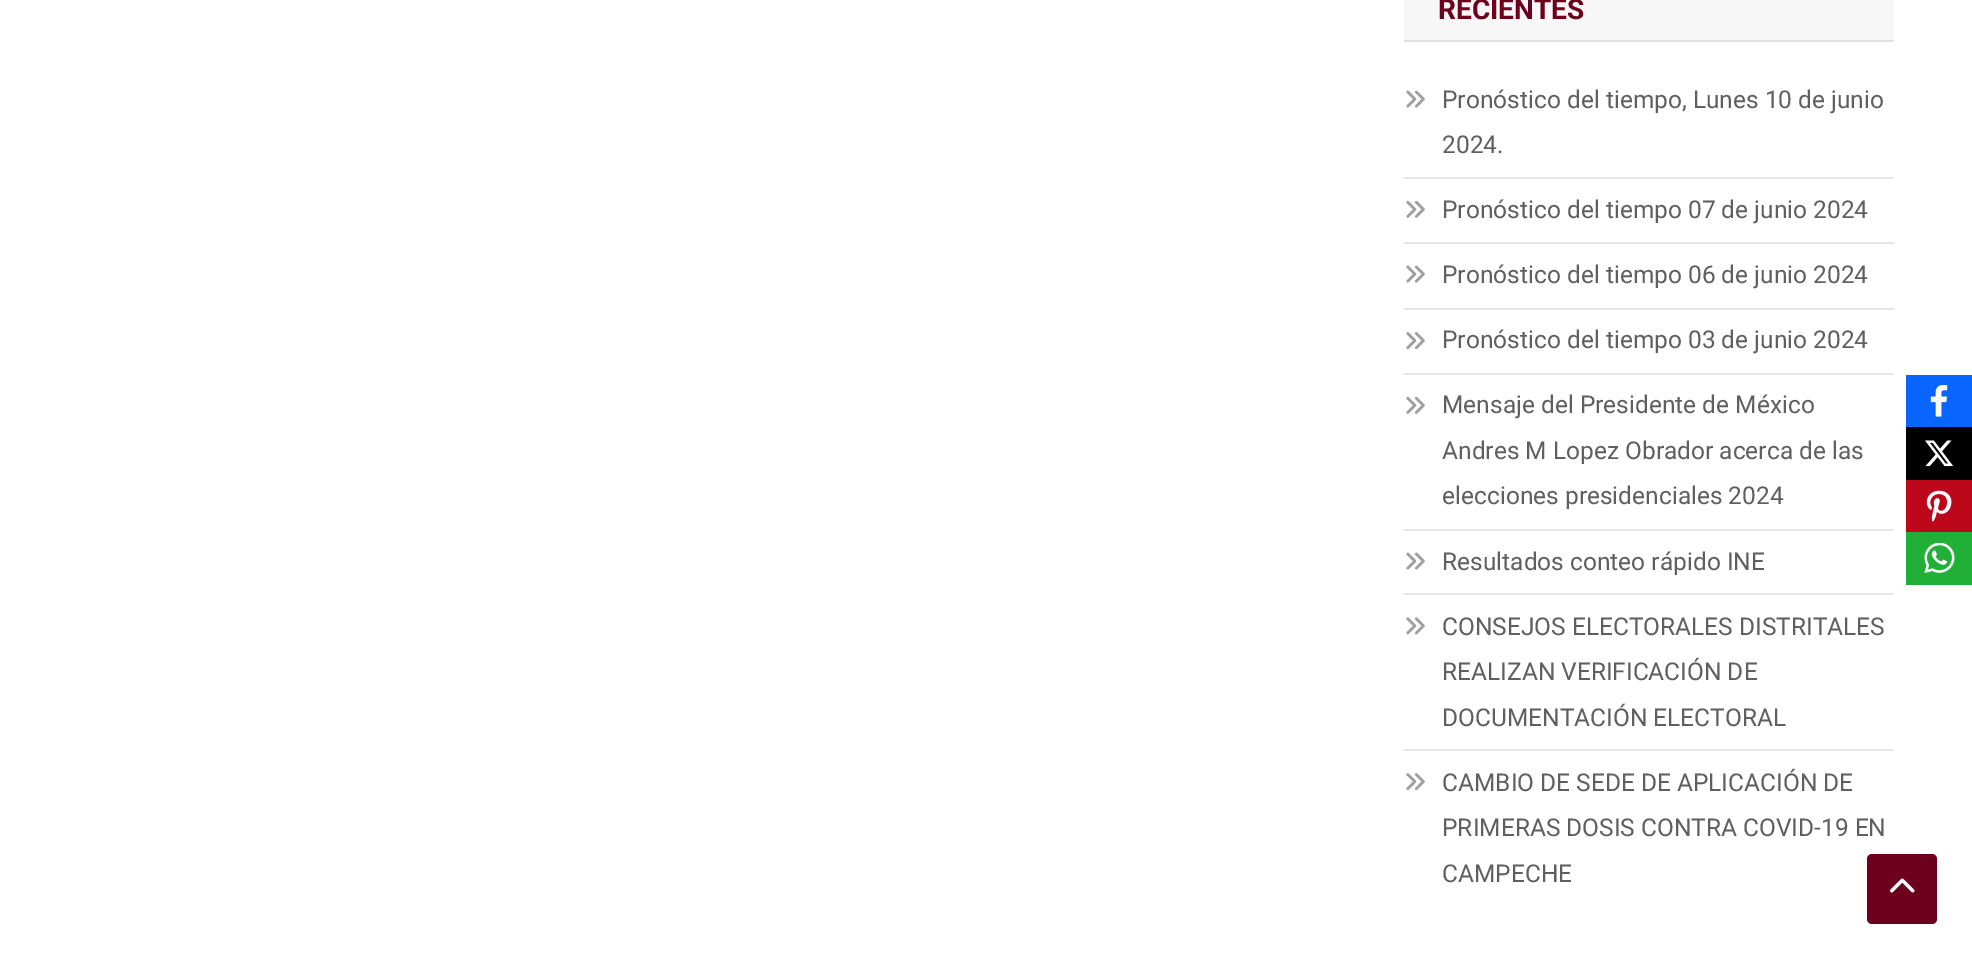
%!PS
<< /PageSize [1972 958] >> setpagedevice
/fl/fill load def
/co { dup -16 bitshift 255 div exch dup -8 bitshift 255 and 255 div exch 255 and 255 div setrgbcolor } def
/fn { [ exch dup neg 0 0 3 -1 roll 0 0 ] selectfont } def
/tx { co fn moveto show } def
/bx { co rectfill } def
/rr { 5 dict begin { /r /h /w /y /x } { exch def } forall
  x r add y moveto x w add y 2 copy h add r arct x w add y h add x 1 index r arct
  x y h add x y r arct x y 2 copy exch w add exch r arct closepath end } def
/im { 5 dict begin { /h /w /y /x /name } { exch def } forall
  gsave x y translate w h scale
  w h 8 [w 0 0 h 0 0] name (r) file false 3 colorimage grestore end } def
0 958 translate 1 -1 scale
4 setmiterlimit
0 0 1972 958 16#FFFFFF bx
1404 0 490 40 16#F7F7F7 bx
1404 40 490 2 16#E1E1E1 bx
1404 177 490 2 16#E6E6E6 bx
(media/1.raw) 1406 90 19 18 im
1404 242 490 2 16#E6E6E6 bx
(media/2.raw) 1406 200 19 18 im
1404 308 490 2 16#E6E6E6 bx
(media/1.raw) 1406 265 19 18 im
1404 373 490 2 16#E6E6E6 bx
(media/3.raw) 1406 332 19 18 im
1404 529 490 2 16#E6E6E6 bx
(media/2.raw) 1406 396 19 18 im
1404 593 490 2 16#E6E6E6 bx
(media/1.raw) 1406 552 19 18 im
1404 749 490 2 16#E6E6E6 bx
(media/4.raw) 1406 617 19 18 im
(media/3.raw) 1406 773 19 18 im
16#6D001D co
1867 854 70 70 5 rr fl
(media/5.raw) 1890 878 25 15 im
1906 375 66 52 16#0866FF bx
(media/6.raw) 1930 385 18 32 im
1906 427 66 53 16#000000 bx
(media/7.raw) 1925 440 29 27 im
1906 480 66 52 16#BD081C bx
(media/8.raw) 1926 490 26 32 im
1906 532 66 53 16#20B038 bx
(media/9.raw) 1924 543 31 30 im
(RECIENTES) 1438 19 /Roboto-Bold 28 16#6D001D tx
(Pronóstico del tiempo, Lunes 10 de junio) 1442 108 /Roboto-Regular 24.5 16#5F5F5F tx
(2024.) 1442 153 /Roboto-Regular 24.5 16#5F5F5F tx
(Pronóstico del tiempo 07 de junio 2024) 1442 218 /Roboto-Regular 24.5 16#5F5F5F tx
(Pronóstico del tiempo 06 de junio 2024) 1442 283 /Roboto-Regular 24.5 16#5F5F5F tx
(Pronóstico del tiempo 03 de junio 2024) 1442 348 /Roboto-Regular 24.5 16#5F5F5F tx
(Mensaje del Presidente de México) 1442 413 /Roboto-Regular 24.5 16#5F5F5F tx
(Andres M Lopez Obrador acerca de las) 1442 459 /Roboto-Regular 24.5 16#5F5F5F tx
(elecciones presidenciales 2024) 1442 504 /Roboto-Regular 24.5 16#5F5F5F tx
(Resultados conteo rápido INE) 1442 570 /Roboto-Regular 24.5 16#5F5F5F tx
(CONSEJOS ELECTORALES DISTRITALES) 1442 635 /Roboto-Regular 24.5 16#5F5F5F tx
(REALIZAN VERIFICACIÓN DE) 1442 680 /Roboto-Regular 24.5 16#5F5F5F tx
(DOCUMENTACIÓN ELECTORAL) 1442 726 /Roboto-Regular 24.5 16#5F5F5F tx
(CAMBIO DE SEDE DE APLICACIÓN DE) 1442 791 /Roboto-Regular 24.5 16#5F5F5F tx
(PRIMERAS DOSIS CONTRA COVID-19 EN) 1442 836 /Roboto-Regular 24.5 16#5F5F5F tx
(CAMPECHE) 1442 882 /Roboto-Regular 24.5 16#5F5F5F tx
showpage
